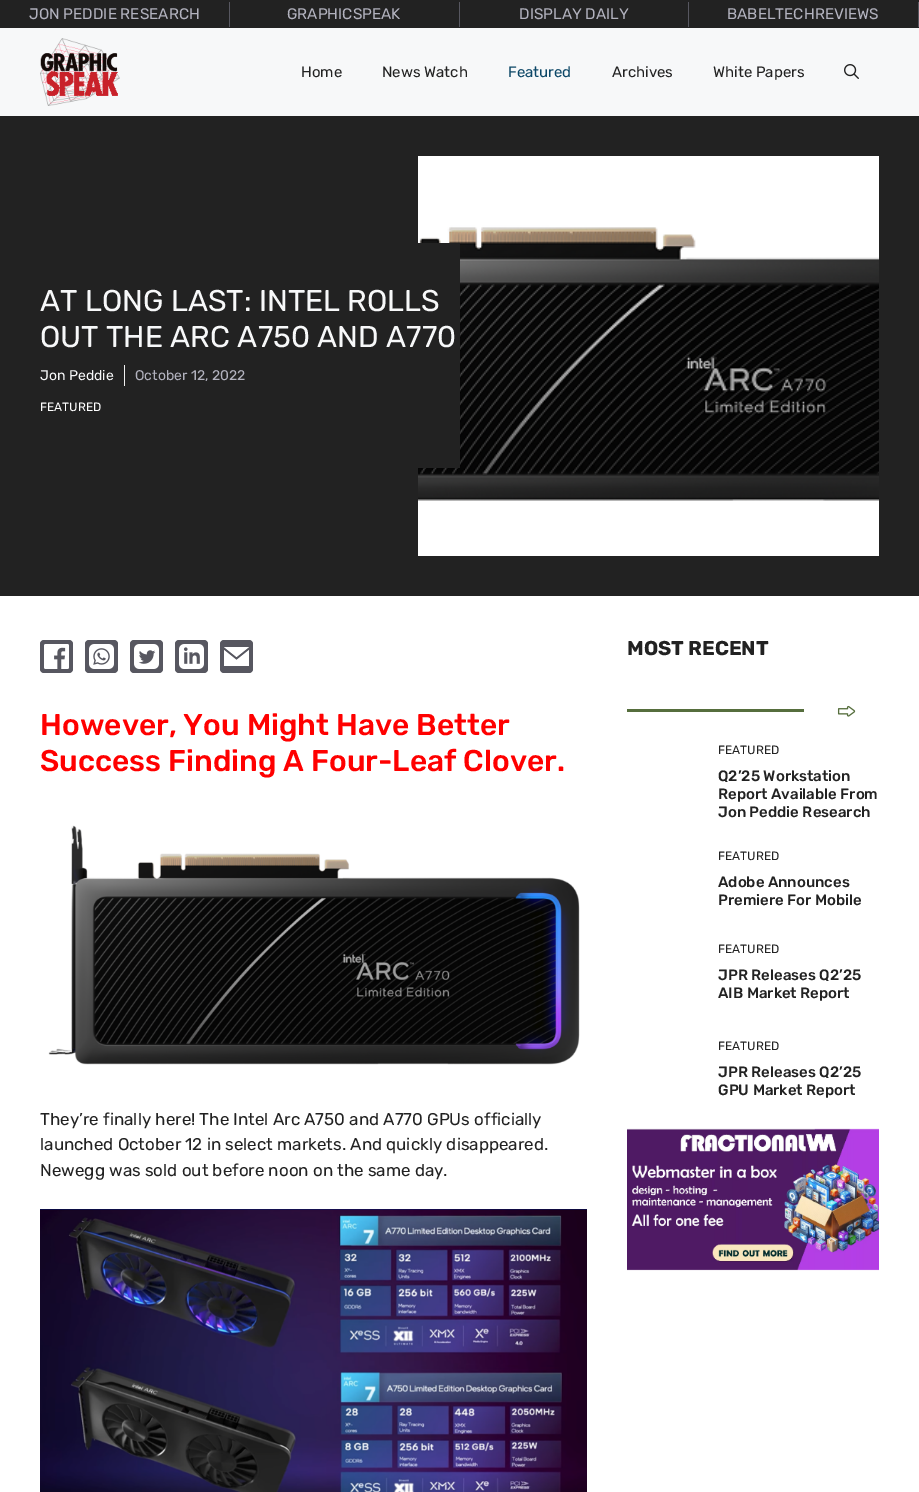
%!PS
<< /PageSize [919 1492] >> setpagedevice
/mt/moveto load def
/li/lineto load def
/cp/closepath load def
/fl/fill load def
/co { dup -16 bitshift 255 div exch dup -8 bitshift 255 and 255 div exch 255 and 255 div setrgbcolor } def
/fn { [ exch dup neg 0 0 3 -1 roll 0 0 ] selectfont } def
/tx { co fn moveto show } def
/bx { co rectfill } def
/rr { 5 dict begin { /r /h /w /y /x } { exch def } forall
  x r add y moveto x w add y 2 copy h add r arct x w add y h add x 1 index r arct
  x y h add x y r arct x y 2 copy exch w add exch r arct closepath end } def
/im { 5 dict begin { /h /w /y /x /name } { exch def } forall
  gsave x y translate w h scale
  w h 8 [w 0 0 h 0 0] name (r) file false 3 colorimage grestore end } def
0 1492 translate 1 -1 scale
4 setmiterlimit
0 0 919 1492 16#FFFFFF bx
0 0 919 28 16#222222 bx
229 2 1 25 16#575760 bx
459 2 1 25 16#575760 bx
688 2 1 25 16#575760 bx
918 2 1 25 16#575760 bx
0 28 919 88 16#F7F8F9 bx
(media/1.raw) 40 38 80 68 im
(media/2.raw) 844 64 15 15 im
0 116 919 480 16#222222 bx
(media/3.raw) 418 156 461 400 im
418 243 42 225 16#222222 bx
124 365 1 21 16#F0F0F0 bx
16#575760 co
40 640 33 33 4 rr fl
(media/4.raw) 44 644 25 25 im
85 640 33 33 4 rr fl
(media/5.raw) 89 644 25 25 im
130 640 33 33 4 rr fl
(media/6.raw) 134 644 25 25 im
175 640 33 33 4 rr fl
(media/7.raw) 179 644 25 25 im
220 640 33 33 4 rr fl
16#FFFFFF co
236.5 657 mt 224 647 li 249 647 li cp 236.5 660 mt 224 650 li 224 666 li 249 666 li 249 650 li cp fl
(media/8.raw) 48 825 532 240 im
(media/9.raw) 40 1209 547 283 im
627 709 177 3 16#566E3D bx
(media/10.raw) 837 705 19 12 im
(media/11.raw) 627 1128 252 143 im
(JON PEDDIE RESEARCH) 29 19 /Rubik-Regular 15.25 16#B2B2BE tx
(GRAPHICSPEAK) 287 19 /Rubik-Regular 15.25 16#B2B2BE tx
(DISPLAY DAILY) 519 19 /Rubik-Regular 15.25 16#B2B2BE tx
(BABELTECHREVIEWS) 727 19 /Rubik-Regular 15.25 16#B2B2BE tx
(Home) 301 77 /Rubik-Regular 15 16#222222 tx
(News Watch) 382 77 /Rubik-Regular 15 16#222222 tx
(Featured) 508 77 /Rubik-Regular 15 16#0C4767 tx
(Archives) 612 77 /Rubik-Regular 15 16#222222 tx
(White Papers) 713 77 /Rubik-Regular 15 16#222222 tx
(AT LONG LAST: INTEL ROLLS) 40 311 /Rubik-Regular 30 16#F7F8F9 tx
(OUT THE ARC A750 AND A770) 40 347 /Rubik-Regular 30 16#F7F8F9 tx
(Jon Peddie) 40 380 /Rubik-Regular 14 16#F7F8F9 tx
(October 12, 2022) 135 380 /Rubik-Regular 14 16#B2B2BE tx
(FEATURED) 40 411 /Rubik-Regular 12 16#FFFFFF tx
(However, You Might Have Better) 40 735 /Rubik-Medium 30 16#FF0000 tx
(Success Finding A Four-Leaf Clover.) 40 771 /Rubik-Medium 30 16#FF0000 tx
(They’re finally here! The Intel Arc A750 and A770 GPUs officially) 40 1125 /Rubik-Regular 17 16#222222 tx
(launched October 12 in select markets. And quickly disappeared.) 40 1150 /Rubik-Regular 17 16#222222 tx
(Newegg was sold out before noon on the same day.) 40 1176 /Rubik-Regular 17 16#222222 tx
(MOST RECENT) 627 655 /Rubik-Bold 20 16#222222 tx
(FEATURED) 718 754 /Rubik-Regular 12 16#222222 tx
(Q2’25 Workstation) 718 781 /Rubik-Medium 15 16#222222 tx
(Report Available From) 718 799 /Rubik-Medium 15 16#222222 tx
(Jon Peddie Research) 718 817 /Rubik-Medium 15 16#222222 tx
(FEATURED) 718 860 /Rubik-Regular 12 16#222222 tx
(Adobe Announces) 718 887 /Rubik-Medium 15 16#222222 tx
(Premiere For Mobile) 718 905 /Rubik-Medium 15 16#222222 tx
(FEATURED) 718 953 /Rubik-Regular 12 16#222222 tx
(JPR Releases Q2’25) 718 980 /Rubik-Medium 15 16#222222 tx
(AIB Market Report) 718 998 /Rubik-Medium 15 16#222222 tx
(FEATURED) 718 1050 /Rubik-Regular 12 16#222222 tx
(JPR Releases Q2’25) 718 1077 /Rubik-Medium 15 16#222222 tx
(GPU Market Report) 718 1095 /Rubik-Medium 15 16#222222 tx
showpage
